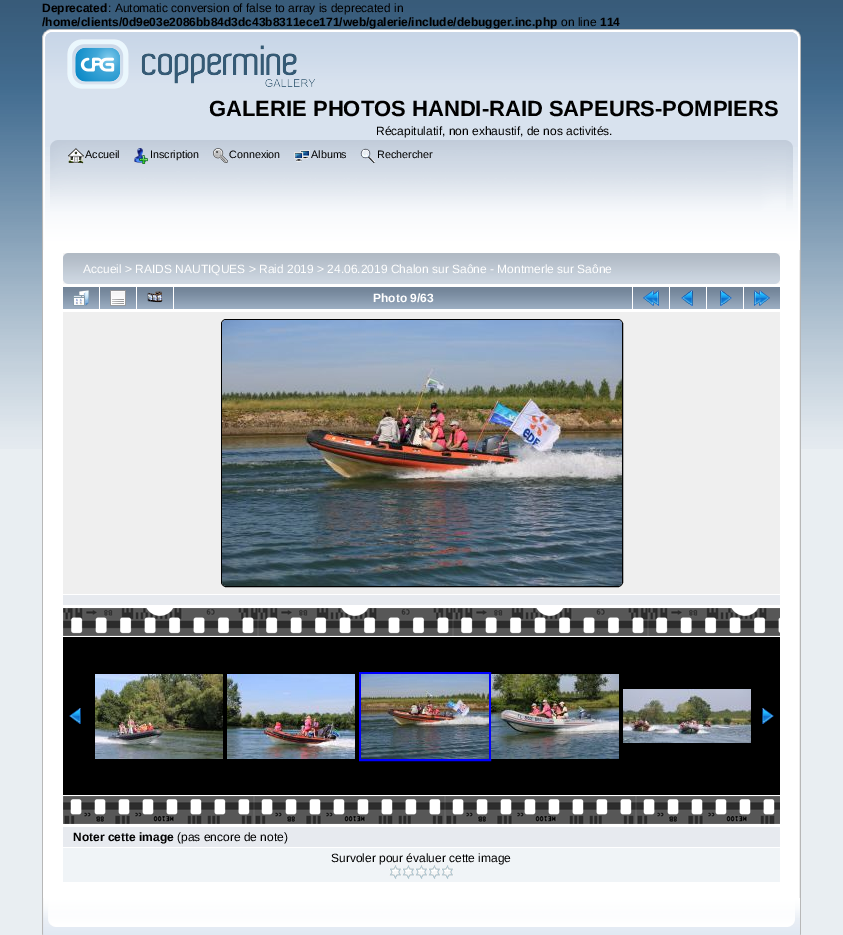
%!PS
<< /PageSize [843 935] >> setpagedevice
/st/stroke load def
/lw/setlinewidth load def
/co { dup -16 bitshift 255 div exch dup -8 bitshift 255 and 255 div exch 255 and 255 div setrgbcolor } def
/fn { [ exch dup neg 0 0 3 -1 roll 0 0 ] selectfont } def
/tx { co fn moveto show } def
/bx { co rectfill } def
/rr { 5 dict begin { /r /h /w /y /x } { exch def } forall
  x r add y moveto x w add y 2 copy h add r arct x w add y h add x 1 index r arct
  x y h add x y r arct x y 2 copy exch w add exch r arct closepath end } def
/im { 5 dict begin { /h /w /y /x /name } { exch def } forall
  gsave x y translate w h scale
  w h 8 [w 0 0 h 0 0] name (r) file false 3 colorimage grestore end } def
0 935 translate 1 -1 scale
4 setmiterlimit
0 0 843 935 16#E9EEF2 bx
(media/1.raw) 0 0 843 449 im
(media/2.raw) 42 29 751 111 im
(media/3.raw) 793 29 8 111 im
(media/4.raw) 67 39 248 50 im
(media/5.raw) 42 140 744 110 im
(media/6.raw) 786 140 15 110 im
(media/7.raw) 68 148 16 16 im
(media/8.raw) 134 148 14 16 im
(media/9.raw) 213 148 15 15 im
(media/10.raw) 294 150 16 12 im
(media/11.raw) 360 148 16 15 im
43 250 756 648 16#FFFFFF bx
42 250 1 648 16#B7B7B7 bx
(media/12.raw) 799 250 2 648 im
(media/13.raw) 63 253 712 31 im
(media/14.raw) 775 253 5 31 im
(media/15.raw) 63 287 36 22 im
(media/16.raw) 73 290 16 16 im
(media/15.raw) 100 287 36 22 im
(media/17.raw) 110 290 16 16 im
(media/15.raw) 137 287 36 22 im
(media/18.raw) 147 291 16 12 im
(media/19.raw) 174 287 458 22 im
(media/15.raw) 633 287 36 22 im
(media/20.raw) 643 290 16 16 im
(media/15.raw) 670 287 36 22 im
(media/21.raw) 681 290 12 16 im
(media/15.raw) 707 287 36 22 im
(media/22.raw) 720 290 12 16 im
(media/15.raw) 744 287 36 22 im
(media/23.raw) 754 290 16 16 im
63 312 717 282 16#EFEFEF bx
16#000000 co
221.5 319.5 401 267 4.5 rr st
(media/24.raw) 222 320 400 266 im
63 595 717 10 16#E7EAEF bx
(media/25.raw) 63 608 717 28 im
63 637 717 158 16#000000 bx
(media/26.raw) 69 708 12 16 im
(media/27.raw) 95 674 128 85 im
(media/28.raw) 227 674 128 85 im
16#0000FF co
2 lw
360 673 130 87 rectstroke
(media/29.raw) 361 674 128 85 im
(media/30.raw) 491 674 128 85 im
(media/31.raw) 623 689 128 54 im
(media/32.raw) 762 708 12 16 im
(media/33.raw) 63 796 717 28 im
63 827 717 20 16#E7EAEF bx
63 848 717 34 16#F0F4F7 bx
(media/34.raw) 389 865 13 14 im
(media/34.raw) 402 865 13 14 im
(media/34.raw) 415 865 13 14 im
(media/34.raw) 428 865 13 14 im
(media/34.raw) 441 865 13 14 im
(media/35.raw) 42 898 746 37 im
(media/36.raw) 788 898 13 37 im
(Deprecated) 42 12 /LiberationSans-Bold 12 16#000000 tx
(: Automatic conversion of false to array is deprecated in) 108 12 /LiberationSans-Regular 12 16#000000 tx
(/home/clients/0d9e03e2086bb84d3dc43b8311ece171/web/galerie/include/debugger.inc.php) 42 26 /LiberationSans-Bold 12 16#000000 tx
(on line) 561 26 /LiberationSans-Regular 12 16#000000 tx
(114) 600 26 /LiberationSans-Bold 12 16#000000 tx
(GALERIE PHOTOS HANDI-RAID SAPEURS-POMPIERS) 209 116 /LiberationSans-Bold 22 16#000000 tx
(Récapitulatif, non exhaustif, de nos activités.) 376 135 /LiberationSans-Regular 12 16#000000 tx
(Accueil) 85 158 /LiberationSans-Regular 10.75 16#000000 tx
(Inscription) 150 158 /LiberationSans-Regular 10.75 16#000000 tx
(Connexion) 229 158 /LiberationSans-Regular 10.75 16#000000 tx
(Albums) 311 158 /LiberationSans-Regular 10.75 16#000000 tx
(Rechercher) 377 158 /LiberationSans-Regular 10.75 16#000000 tx
(Accueil > RAIDS NAUTIQUES > Raid 2019 > 24.06.2019 Chalon sur Saône - Montmerle sur Saône) 83 273 /LiberationSans-Regular 12 16#FFFFFF tx
(Photo 9/63) 373 302 /LiberationSans-Bold 12 16#FFFFFF tx
(Noter cette image) 73 841 /LiberationSans-Bold 12 16#000000 tx
(\(pas encore de note\)) 177 841 /LiberationSans-Regular 12 16#000000 tx
(Survoler pour évaluer cette image) 331 862 /LiberationSans-Regular 12 16#000000 tx
showpage
